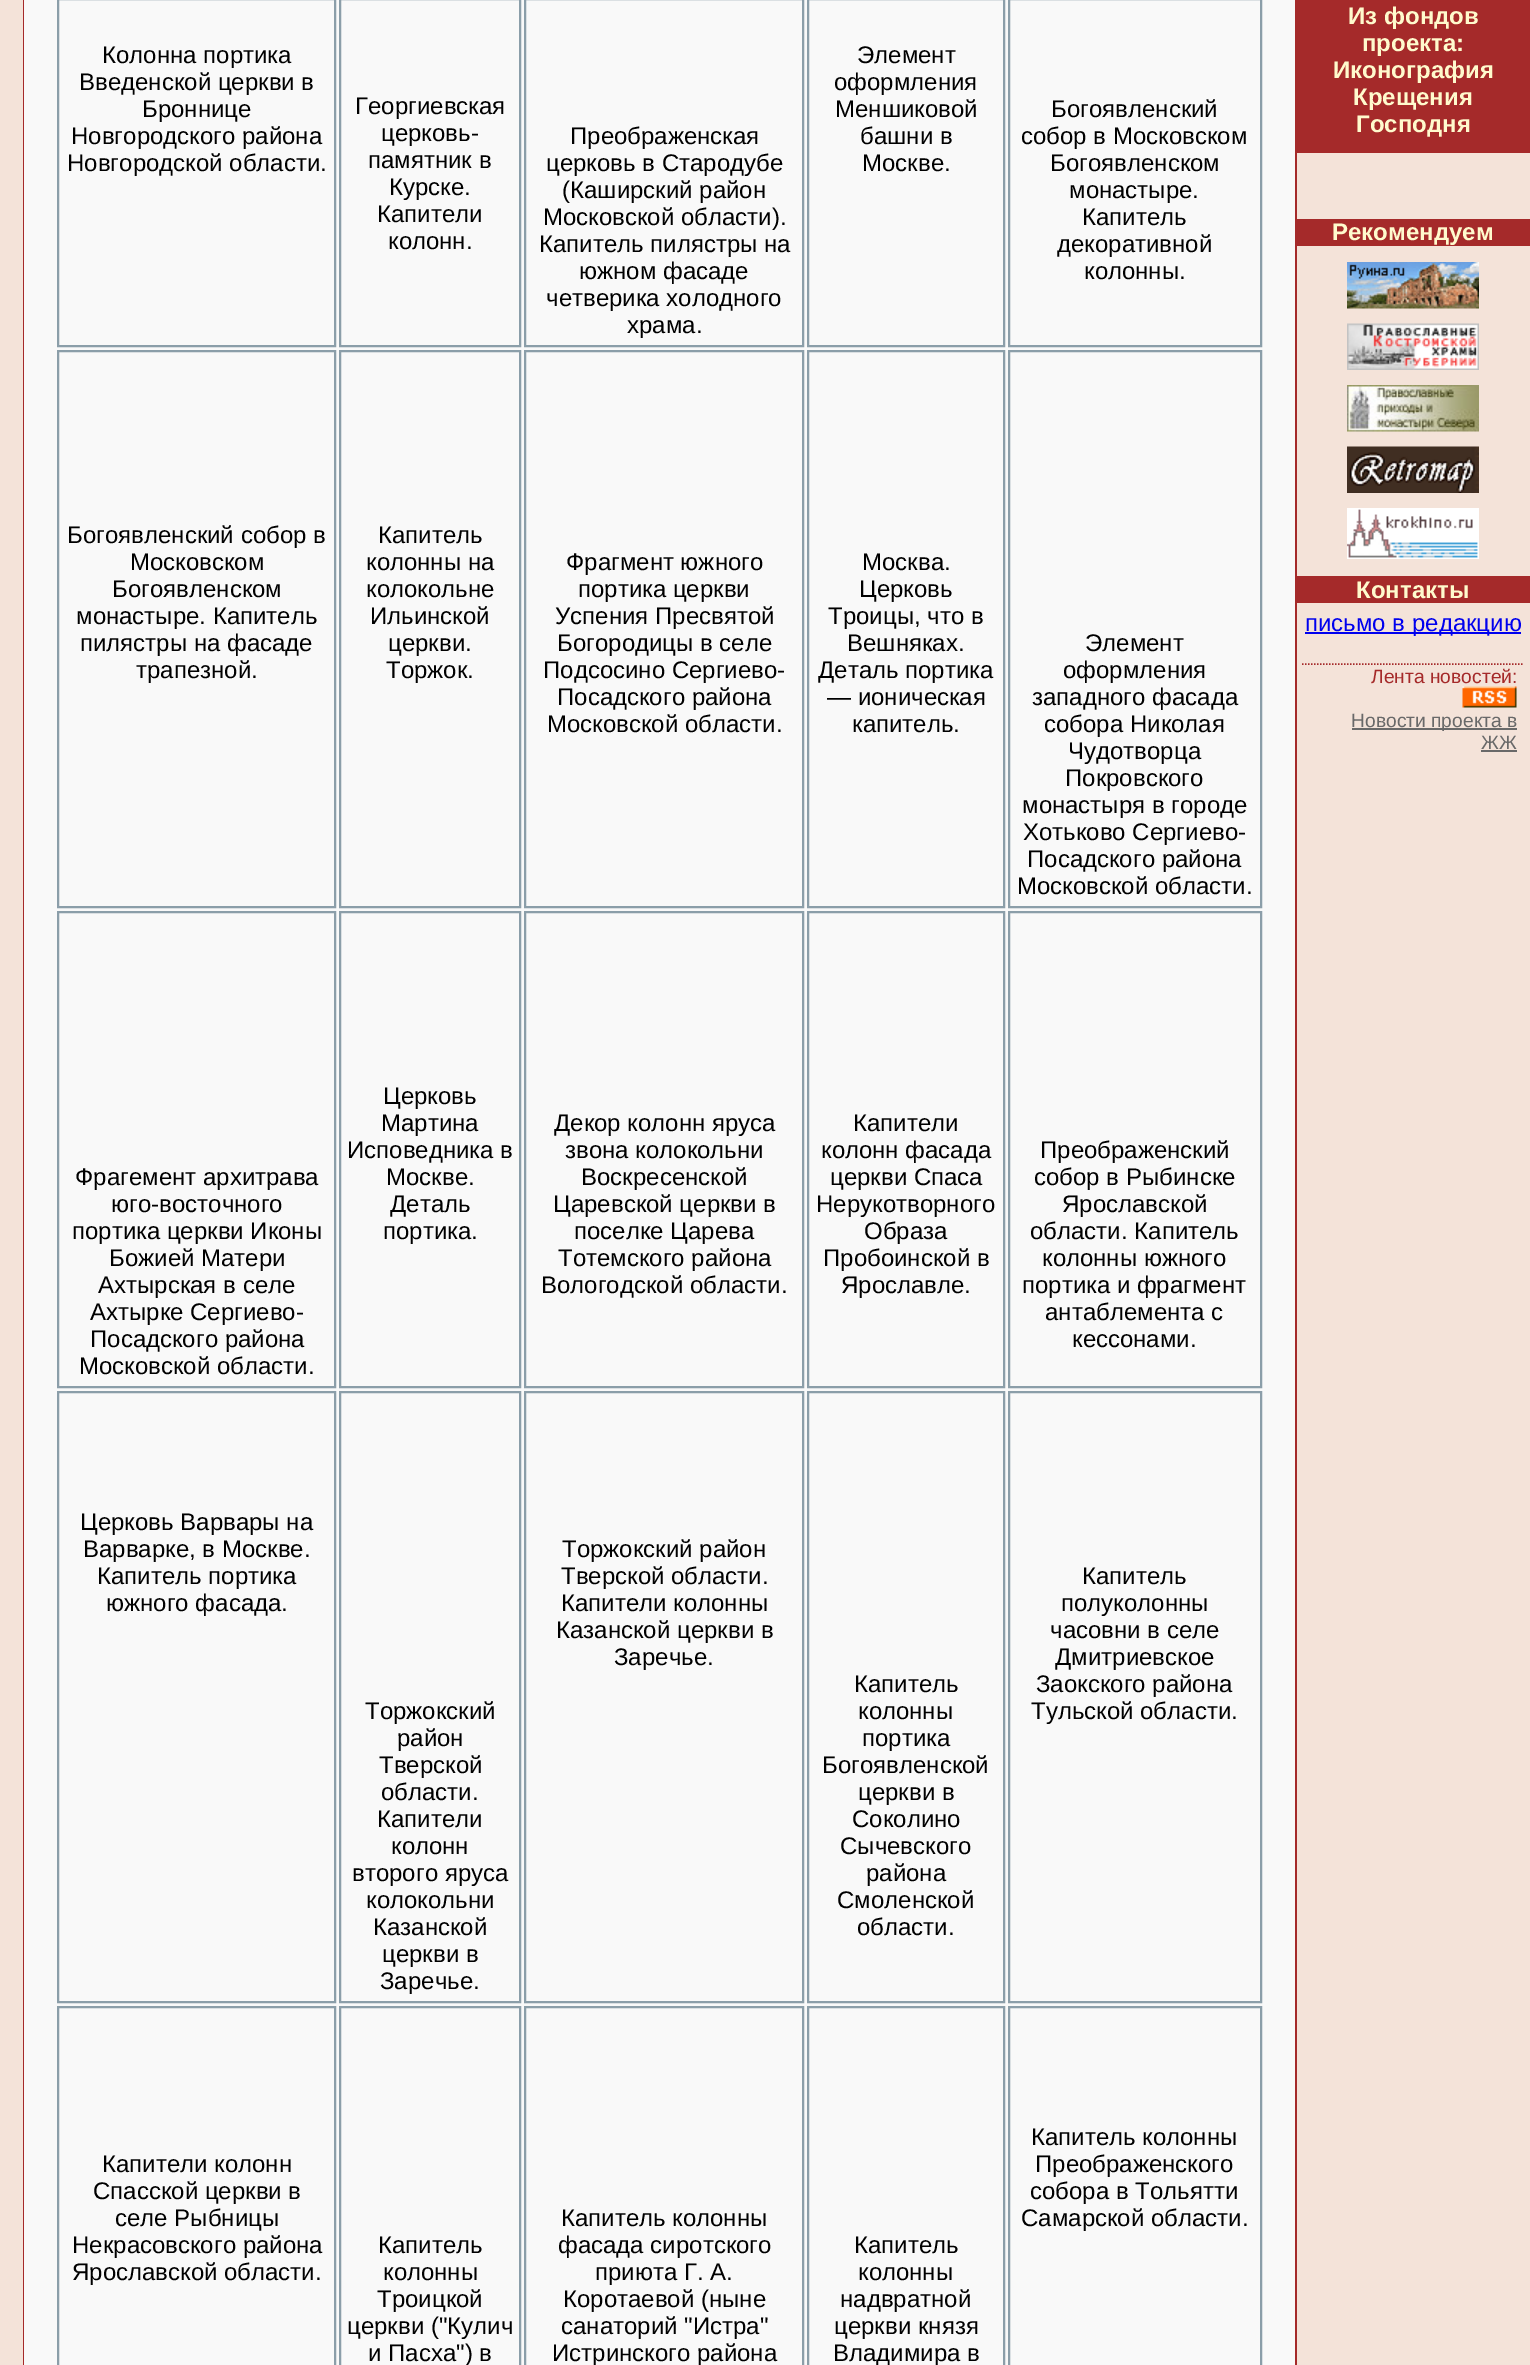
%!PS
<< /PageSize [1530 2365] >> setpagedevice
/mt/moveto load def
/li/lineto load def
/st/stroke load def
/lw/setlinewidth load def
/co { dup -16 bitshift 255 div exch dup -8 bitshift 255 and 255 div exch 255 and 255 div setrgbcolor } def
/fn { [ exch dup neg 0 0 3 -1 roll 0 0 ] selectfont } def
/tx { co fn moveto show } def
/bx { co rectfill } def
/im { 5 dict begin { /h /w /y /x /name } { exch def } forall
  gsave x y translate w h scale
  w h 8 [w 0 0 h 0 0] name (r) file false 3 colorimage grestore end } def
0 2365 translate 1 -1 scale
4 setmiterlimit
0 0 1530 2365 16#F4E3D9 bx
23 0 1 2365 16#A52A2A bx
24 0 1271 2365 16#F9F9F9 bx
16#8B9EA9 co
2 lw
58 -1 277 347 rectstroke
340 -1 180 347 rectstroke
525 -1 278 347 rectstroke
808 -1 196 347 rectstroke
1009 -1 252 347 rectstroke
58 351 277 556 rectstroke
340 351 180 556 rectstroke
525 351 278 556 rectstroke
808 351 196 556 rectstroke
1009 351 252 556 rectstroke
58 912 277 475 rectstroke
340 912 180 475 rectstroke
525 912 278 475 rectstroke
808 912 196 475 rectstroke
1009 912 252 475 rectstroke
58 1392 277 610 rectstroke
525 1392 278 610 rectstroke
1009 1392 252 610 rectstroke
340 1392 180 610 rectstroke
808 1392 196 610 rectstroke
58 2007 277 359 rectstroke
340 2007 180 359 rectstroke
525 2007 278 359 rectstroke
808 2007 196 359 rectstroke
1009 2007 252 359 rectstroke
1295 0 2 2365 16#A52A2A bx
1297 0 233 153 16#A52A2A bx
1297 219 233 27 16#A52A2A bx
(media/1.raw) 1347 262 132 47 im
(media/2.raw) 1347 323 132 47 im
(media/3.raw) 1347 385 132 47 im
(media/4.raw) 1347 446 132 47 im
(media/5.raw) 1347 508 132 51 im
1297 576 233 27 16#A52A2A bx
1305 632 216 2 16#0000EE bx
16#A52A2A co
1.5 lw
[1.5 1.5] 0 setdash
1302 664 mt 1524 664 li st
(media/6.raw) 1462 686 55 22 im
1352 728 165 2 16#696969 bx
1481 750 36 2 16#696969 bx
(Колонна портика) 102 63 /LiberationSans-Regular 24 16#000000 tx
(Введенской церкви в) 79 90 /LiberationSans-Regular 24 16#000000 tx
(Броннице) 142 117 /LiberationSans-Regular 24 16#000000 tx
(Новгородского района) 71 144 /LiberationSans-Regular 24 16#000000 tx
(Новгородской области.) 67 171 /LiberationSans-Regular 24 16#000000 tx
(Георгиевская) 355 114 /LiberationSans-Regular 24 16#000000 tx
(церковь-) 381 141 /LiberationSans-Regular 24 16#000000 tx
(памятник в) 368 168 /LiberationSans-Regular 24 16#000000 tx
(Курске.) 389 195 /LiberationSans-Regular 24 16#000000 tx
(Капители) 377 222 /LiberationSans-Regular 24 16#000000 tx
(колонн.) 388 249 /LiberationSans-Regular 24 16#000000 tx
(Преображенская) 570 144 /LiberationSans-Regular 24 16#000000 tx
(церковь в Стародубе) 546 171 /LiberationSans-Regular 24 16#000000 tx
(\(Каширский район) 562 198 /LiberationSans-Regular 24 16#000000 tx
(Московской области\).) 543 225 /LiberationSans-Regular 24 16#000000 tx
(Капитель пилястры на) 539 252 /LiberationSans-Regular 24 16#000000 tx
(южном фасаде) 579 279 /LiberationSans-Regular 24 16#000000 tx
(четверика холодного) 546 306 /LiberationSans-Regular 24 16#000000 tx
(храма.) 627 333 /LiberationSans-Regular 24 16#000000 tx
(Элемент) 857 63 /LiberationSans-Regular 24 16#000000 tx
(оформления) 834 90 /LiberationSans-Regular 24 16#000000 tx
(Меншиковой) 835 117 /LiberationSans-Regular 24 16#000000 tx
(башни в) 860 144 /LiberationSans-Regular 24 16#000000 tx
(Москве.) 862 171 /LiberationSans-Regular 24 16#000000 tx
(Богоявленский) 1051 117 /LiberationSans-Regular 24 16#000000 tx
(собор в Московском) 1021 144 /LiberationSans-Regular 24 16#000000 tx
(Богоявленском) 1050 171 /LiberationSans-Regular 24 16#000000 tx
(монастыре.) 1069 198 /LiberationSans-Regular 24 16#000000 tx
(Капитель) 1082 225 /LiberationSans-Regular 24 16#000000 tx
(декоративной) 1057 252 /LiberationSans-Regular 24 16#000000 tx
(колонны.) 1084 279 /LiberationSans-Regular 24 16#000000 tx
(Богоявленский собор в) 67 543 /LiberationSans-Regular 24 16#000000 tx
(Московском) 130 570 /LiberationSans-Regular 24 16#000000 tx
(Богоявленском) 112 597 /LiberationSans-Regular 24 16#000000 tx
(монастыре. Капитель) 76 624 /LiberationSans-Regular 24 16#000000 tx
(пилястры на фасаде) 80 651 /LiberationSans-Regular 24 16#000000 tx
(трапезной.) 136 678 /LiberationSans-Regular 24 16#000000 tx
(Капитель) 378 543 /LiberationSans-Regular 24 16#000000 tx
(колонны на) 366 570 /LiberationSans-Regular 24 16#000000 tx
(колокольне) 366 597 /LiberationSans-Regular 24 16#000000 tx
(Ильинской) 370 624 /LiberationSans-Regular 24 16#000000 tx
(церкви.) 388 651 /LiberationSans-Regular 24 16#000000 tx
(Торжок.) 386 678 /LiberationSans-Regular 24 16#000000 tx
(Фрагмент южного) 566 570 /LiberationSans-Regular 24 16#000000 tx
(портика церкви) 578 597 /LiberationSans-Regular 24 16#000000 tx
(Успения Пресвятой) 555 624 /LiberationSans-Regular 24 16#000000 tx
(Богородицы в селе) 557 651 /LiberationSans-Regular 24 16#000000 tx
(Подсосино Сергиево-) 543 678 /LiberationSans-Regular 24 16#000000 tx
(Посадского района) 557 705 /LiberationSans-Regular 24 16#000000 tx
(Московской области.) 547 732 /LiberationSans-Regular 24 16#000000 tx
(Москва.) 862 570 /LiberationSans-Regular 24 16#000000 tx
(Церковь) 859 597 /LiberationSans-Regular 24 16#000000 tx
(Троицы, что в) 828 624 /LiberationSans-Regular 24 16#000000 tx
(Вешняках.) 847 651 /LiberationSans-Regular 24 16#000000 tx
(Деталь портика) 818 678 /LiberationSans-Regular 24 16#000000 tx
(— ионическая) 827 705 /LiberationSans-Regular 24 16#000000 tx
(капитель.) 852 732 /LiberationSans-Regular 24 16#000000 tx
(Элемент) 1085 651 /LiberationSans-Regular 24 16#000000 tx
(оформления) 1063 678 /LiberationSans-Regular 24 16#000000 tx
(западного фасада) 1032 705 /LiberationSans-Regular 24 16#000000 tx
(собора Николая) 1044 732 /LiberationSans-Regular 24 16#000000 tx
(Чудотворца) 1068 759 /LiberationSans-Regular 24 16#000000 tx
(Покровского) 1065 786 /LiberationSans-Regular 24 16#000000 tx
(монастыря в городе) 1022 813 /LiberationSans-Regular 24 16#000000 tx
(Хотьково Сергиево-) 1023 840 /LiberationSans-Regular 24 16#000000 tx
(Посадского района) 1027 867 /LiberationSans-Regular 24 16#000000 tx
(Московской области.) 1017 894 /LiberationSans-Regular 24 16#000000 tx
(Фрагемент архитрава) 75 1185 /LiberationSans-Regular 24 16#000000 tx
(юго-восточного) 111 1212 /LiberationSans-Regular 24 16#000000 tx
(портика церкви Иконы) 72 1239 /LiberationSans-Regular 24 16#000000 tx
(Божией Матери) 109 1266 /LiberationSans-Regular 24 16#000000 tx
(Ахтырская в селе) 98 1293 /LiberationSans-Regular 24 16#000000 tx
(Ахтырке Сергиево-) 90 1320 /LiberationSans-Regular 24 16#000000 tx
(Посадского района) 90 1347 /LiberationSans-Regular 24 16#000000 tx
(Московской области.) 79 1374 /LiberationSans-Regular 24 16#000000 tx
(Церковь) 383 1104 /LiberationSans-Regular 24 16#000000 tx
(Мартина) 381 1131 /LiberationSans-Regular 24 16#000000 tx
(Исповедника в) 347 1158 /LiberationSans-Regular 24 16#000000 tx
(Москве.) 386 1185 /LiberationSans-Regular 24 16#000000 tx
(Деталь) 390 1212 /LiberationSans-Regular 24 16#000000 tx
(портика.) 383 1239 /LiberationSans-Regular 24 16#000000 tx
(Декор колонн яруса) 554 1131 /LiberationSans-Regular 24 16#000000 tx
(звона колокольни) 565 1158 /LiberationSans-Regular 24 16#000000 tx
(Воскресенской) 581 1185 /LiberationSans-Regular 24 16#000000 tx
(Царевской церкви в) 553 1212 /LiberationSans-Regular 24 16#000000 tx
(поселке Царева) 574 1239 /LiberationSans-Regular 24 16#000000 tx
(Тотемского района) 558 1266 /LiberationSans-Regular 24 16#000000 tx
(Вологодской области.) 541 1293 /LiberationSans-Regular 24 16#000000 tx
(Капители) 853 1131 /LiberationSans-Regular 24 16#000000 tx
(колонн фасада) 821 1158 /LiberationSans-Regular 24 16#000000 tx
(церкви Спаса) 830 1185 /LiberationSans-Regular 24 16#000000 tx
(Нерукотворного) 816 1212 /LiberationSans-Regular 24 16#000000 tx
(Образа) 864 1239 /LiberationSans-Regular 24 16#000000 tx
(Пробоинской в) 823 1266 /LiberationSans-Regular 24 16#000000 tx
(Ярославле.) 841 1293 /LiberationSans-Regular 24 16#000000 tx
(Преображенский) 1040 1158 /LiberationSans-Regular 24 16#000000 tx
(собор в Рыбинске) 1034 1185 /LiberationSans-Regular 24 16#000000 tx
(Ярославской) 1062 1212 /LiberationSans-Regular 24 16#000000 tx
(области. Капитель) 1030 1239 /LiberationSans-Regular 24 16#000000 tx
(колонны южного) 1042 1266 /LiberationSans-Regular 24 16#000000 tx
(портика и фрагмент) 1022 1293 /LiberationSans-Regular 24 16#000000 tx
(антаблемента с) 1045 1320 /LiberationSans-Regular 24 16#000000 tx
(кессонами.) 1072 1347 /LiberationSans-Regular 24 16#000000 tx
(Церковь Варвары на) 80 1530 /LiberationSans-Regular 24 16#000000 tx
(Варварке, в Москве.) 83 1557 /LiberationSans-Regular 24 16#000000 tx
(Капитель портика) 97 1584 /LiberationSans-Regular 24 16#000000 tx
(южного фасада.) 106 1611 /LiberationSans-Regular 24 16#000000 tx
(Торжокский район) 562 1557 /LiberationSans-Regular 24 16#000000 tx
(Тверской области.) 561 1584 /LiberationSans-Regular 24 16#000000 tx
(Капители колонны) 561 1611 /LiberationSans-Regular 24 16#000000 tx
(Казанской церкви в) 556 1638 /LiberationSans-Regular 24 16#000000 tx
(Заречье.) 614 1665 /LiberationSans-Regular 24 16#000000 tx
(Капитель) 1082 1584 /LiberationSans-Regular 24 16#000000 tx
(полуколонны) 1061 1611 /LiberationSans-Regular 24 16#000000 tx
(часовни в селе) 1050 1638 /LiberationSans-Regular 24 16#000000 tx
(Дмитриевское) 1055 1665 /LiberationSans-Regular 24 16#000000 tx
(Заокского района) 1036 1692 /LiberationSans-Regular 24 16#000000 tx
(Тульской области.) 1031 1719 /LiberationSans-Regular 24 16#000000 tx
(Торжокский) 365 1719 /LiberationSans-Regular 24 16#000000 tx
(район) 397 1746 /LiberationSans-Regular 24 16#000000 tx
(Тверской) 379 1773 /LiberationSans-Regular 24 16#000000 tx
(области.) 381 1800 /LiberationSans-Regular 24 16#000000 tx
(Капители) 377 1827 /LiberationSans-Regular 24 16#000000 tx
(колонн) 391 1854 /LiberationSans-Regular 24 16#000000 tx
(второго яруса) 352 1881 /LiberationSans-Regular 24 16#000000 tx
(колокольни) 366 1908 /LiberationSans-Regular 24 16#000000 tx
(Казанской) 373 1935 /LiberationSans-Regular 24 16#000000 tx
(церкви в) 382 1962 /LiberationSans-Regular 24 16#000000 tx
(Заречье.) 380 1989 /LiberationSans-Regular 24 16#000000 tx
(Капитель) 854 1692 /LiberationSans-Regular 24 16#000000 tx
(колонны) 858 1719 /LiberationSans-Regular 24 16#000000 tx
(портика) 862 1746 /LiberationSans-Regular 24 16#000000 tx
(Богоявленской) 822 1773 /LiberationSans-Regular 24 16#000000 tx
(церкви в) 858 1800 /LiberationSans-Regular 24 16#000000 tx
(Соколино) 852 1827 /LiberationSans-Regular 24 16#000000 tx
(Сычевского) 840 1854 /LiberationSans-Regular 24 16#000000 tx
(района) 866 1881 /LiberationSans-Regular 24 16#000000 tx
(Смоленской) 837 1908 /LiberationSans-Regular 24 16#000000 tx
(области.) 857 1935 /LiberationSans-Regular 24 16#000000 tx
(Капители колонн) 102 2172 /LiberationSans-Regular 24 16#000000 tx
(Спасской церкви в) 93 2199 /LiberationSans-Regular 24 16#000000 tx
(селе Рыбницы) 115 2226 /LiberationSans-Regular 24 16#000000 tx
(Некрасовского района) 72 2253 /LiberationSans-Regular 24 16#000000 tx
(Ярославской области.) 72 2280 /LiberationSans-Regular 24 16#000000 tx
(Капитель) 378 2253 /LiberationSans-Regular 24 16#000000 tx
(колонны) 383 2280 /LiberationSans-Regular 24 16#000000 tx
(Троицкой) 377 2307 /LiberationSans-Regular 24 16#000000 tx
(церкви \("Кулич) 347 2334 /LiberationSans-Regular 24 16#000000 tx
(и Пасха"\) в) 368 2361 /LiberationSans-Regular 24 16#000000 tx
(Капитель колонны) 561 2226 /LiberationSans-Regular 24 16#000000 tx
(фасада сиротского) 558 2253 /LiberationSans-Regular 24 16#000000 tx
(приюта Г. А.) 595 2280 /LiberationSans-Regular 24 16#000000 tx
(Коротаевой \(ныне) 563 2307 /LiberationSans-Regular 24 16#000000 tx
(санаторий "Истра") 561 2334 /LiberationSans-Regular 24 16#000000 tx
(Истринского района) 552 2361 /LiberationSans-Regular 24 16#000000 tx
(Капитель) 854 2253 /LiberationSans-Regular 24 16#000000 tx
(колонны) 858 2280 /LiberationSans-Regular 24 16#000000 tx
(надвратной) 840 2307 /LiberationSans-Regular 24 16#000000 tx
(церкви князя) 834 2334 /LiberationSans-Regular 24 16#000000 tx
(Владимира в) 833 2361 /LiberationSans-Regular 24 16#000000 tx
(Капитель колонны) 1031 2145 /LiberationSans-Regular 24 16#000000 tx
(Преображенского) 1035 2172 /LiberationSans-Regular 24 16#000000 tx
(собора в Тольятти) 1030 2199 /LiberationSans-Regular 24 16#000000 tx
(Самарской области.) 1021 2226 /LiberationSans-Regular 24 16#000000 tx
(Из фондов) 1348 24 /LiberationSans-Bold 24 16#FFFACD tx
(проекта:) 1362 51 /LiberationSans-Bold 24 16#FFFACD tx
(Иконография) 1333 78 /LiberationSans-Bold 24 16#FFFACD tx
(Крещения) 1353 105 /LiberationSans-Bold 24 16#FFFACD tx
(Господня) 1356 132 /LiberationSans-Bold 24 16#FFFACD tx
(Рекомендуем) 1332 240 /LiberationSans-Bold 24 16#FFFACD tx
(Контакты) 1356 598 /LiberationSans-Bold 24 16#FFFACD tx
(письмо в редакцию) 1305 631 /LiberationSans-Regular 24 16#0000EE tx
(Лента новостей:) 1371 683 /LiberationSans-Regular 19.25 16#A52A2A tx
(Новости проекта в) 1351 727 /LiberationSans-Regular 19.25 16#696969 tx
(ЖЖ) 1481 749 /LiberationSans-Regular 19.25 16#696969 tx
showpage
